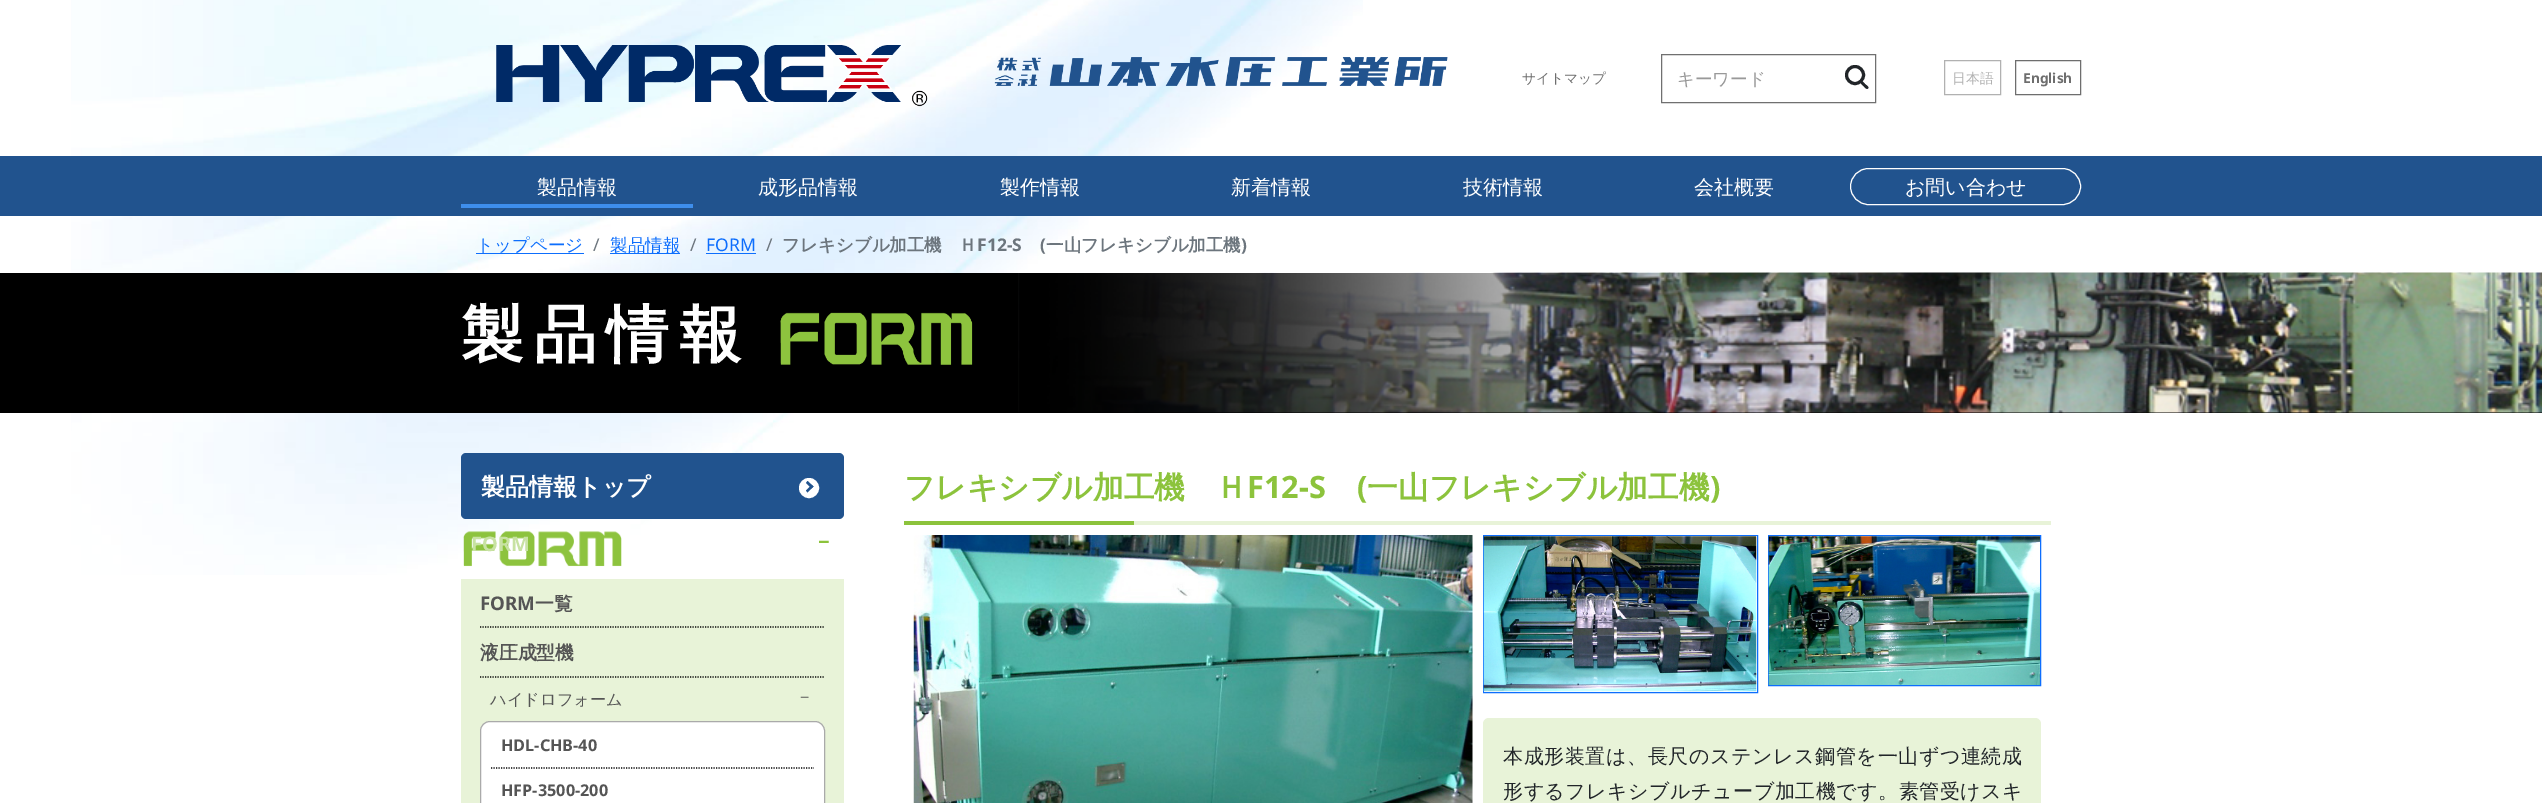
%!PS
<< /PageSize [2542 803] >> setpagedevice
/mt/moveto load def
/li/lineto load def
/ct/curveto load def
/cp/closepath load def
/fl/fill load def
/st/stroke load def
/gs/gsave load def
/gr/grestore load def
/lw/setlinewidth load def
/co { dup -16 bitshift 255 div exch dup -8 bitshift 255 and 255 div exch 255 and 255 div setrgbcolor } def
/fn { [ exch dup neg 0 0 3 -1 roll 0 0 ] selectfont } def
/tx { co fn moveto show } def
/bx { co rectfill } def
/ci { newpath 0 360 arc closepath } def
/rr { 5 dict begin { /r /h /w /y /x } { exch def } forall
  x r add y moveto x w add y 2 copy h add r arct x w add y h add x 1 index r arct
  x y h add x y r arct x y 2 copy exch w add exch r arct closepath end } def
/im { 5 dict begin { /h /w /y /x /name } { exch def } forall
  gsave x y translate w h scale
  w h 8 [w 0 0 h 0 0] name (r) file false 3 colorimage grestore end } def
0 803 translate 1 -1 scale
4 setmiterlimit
0 0 2542 803 16#FFFFFF bx
(media/1.raw) 71 0 1292 575 im
(media/2.raw) 496 45 952 62 im
16#707070 co
1661.5 54.5 214 48 rectstroke
16#212529 co
3 lw
1855 75 8.5 ci st
1861 81.5 mt 1862 80 1864.5 83.5 1865 84 ct 1866 85 1869.5 87 1868 88.5 ct 1866.5 90 1864 86.5 1863.5 86 ct 1862.5 85 1859.5 83 1861 81.5 ct cp fl
16#B1B1B1 co
1 lw
1944.5 60.5 56 34 rectstroke
16#6E6E6E co
2015.5 60.5 65 34 rectstroke
0 156 2542 60 16#21538E bx
461 204 232 4 16#3E8EEC bx
16#FFFFFF co
1850.5 168.5 230 36 18 rr st
476 253 108 1 16#0D6EFD bx
610 253 70 1 16#0D6EFD bx
706 253 50 1 16#0D6EFD bx
0 273 2542 140 16#000000 bx
(media/3.raw) 1018 272 1524 141 im
(media/4.raw) 780 312 193 53 im
16#21538E co
461 453 383 66 5 rr fl
16#FFFFFF co
809 488 8.5 ci gs fl gr
3 lw
st
16#21538E co
806 483 mt 807.5 481 li 813.5 486.5 li 811.5 488.5 li cp fl
806 490.5 mt 811.5 485 li 813.5 486.5 li 807.5 492.5 li cp fl
(media/5.raw) 463 531 159 36 im
461 579 383 224 16#E8F3D8 bx
16#000000 co
1.2 lw
[1.25 1.25] 0 setdash
480 627 mt 825 627 li st
480 677 mt 825 677 li st
16#FFFFFF co
480.5 721.5 344 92 9.5 rr gs fl gr
16#AAAAAA co
1 lw
[] 0 setdash
st
16#000000 co
1.2 lw
[1.25 1.25] 0 setdash
491 768 mt 814 768 li st
1134 521 917 4 16#E8F3D8 bx
904 521 230 4 16#8CC33C bx
(media/6.raw) 913 535 560 268 im
16#0D6EFD co
1 lw
[] 0 setdash
1483.5 535.5 274 157 rectstroke
(media/7.raw) 1483 536 274 156 im
1768.5 535.5 272 150 rectstroke
(media/8.raw) 1768 536 272 149 im
16#E8F3D8 co
1483 718 558 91 6 rr fl
(サイトマップ) 1522 83 /WenQuanYiZenHei-Medium 13.75 16#6E6E6E tx
(キーワード) 1677 85 /WenQuanYiZenHei-Medium 17.5 16#999999 tx
(日本語) 1952 83 /WenQuanYiZenHei-Medium 13.75 16#B1B1B1 tx
(English) 2023 83 /NotoSans-Bold 13.75 16#6E6E6E tx
(製品情報) 537 194 /WenQuanYiZenHei-Medium 20 16#FFFFFF tx
(成形品情報) 758 194 /WenQuanYiZenHei-Medium 20 16#FFFFFF tx
(製作情報) 1000 194 /WenQuanYiZenHei-Medium 20 16#FFFFFF tx
(新着情報) 1231 194 /WenQuanYiZenHei-Medium 20 16#FFFFFF tx
(技術情報) 1463 194 /WenQuanYiZenHei-Medium 20 16#FFFFFF tx
(会社概要) 1694 194 /WenQuanYiZenHei-Medium 20 16#FFFFFF tx
(お問い合わせ) 1905 194 /WenQuanYiZenHei-Medium 20 16#FFFFFF tx
(トップページ) 476 251 /WenQuanYiZenHei-Medium 17.5 16#0D6EFD tx
(/) 593 251 /NotoSans-Regular 17.5 16#6C757D tx
(製品情報) 610 251 /WenQuanYiZenHei-Medium 17.5 16#0D6EFD tx
(/) 690 251 /NotoSans-Regular 17.5 16#6C757D tx
(FORM) 706 251 /NotoSans-Regular 17.5 16#0D6EFD tx
(/) 766 251 /NotoSans-Regular 17.5 16#6C757D tx
(フレキシブル加工機　Ｈ) 782 251 /WenQuanYiZenHei-Bold 17.5 16#6C757D tx
(F12-S) 977 251 /NotoSans-Bold 17.5 16#6C757D tx
(\() 1040 251 /NotoSans-Bold 17.5 16#6C757D tx
(一山フレキシブル加工機) 1046 251 /WenQuanYiZenHei-Bold 17.5 16#6C757D tx
(\)) 1241 251 /NotoSans-Bold 17.5 16#6C757D tx
/WenQuanYiZenHei-Bold 62.5 fn
16#FFFFFF co
461 356 mt 10 0 (製品情報) ashow
(製品情報トップ) 481 495 /WenQuanYiZenHei-Bold 24 16#FFFFFF tx
(FORM) 471 551 /NotoSans-Bold 20 16#C8E2A3 tx
(−) 818 549 /NotoSans-Bold 20 16#8CC33C tx
(FORM) 480 610 /NotoSans-Bold 18.75 16#555555 tx
(一覧) 535 610 /WenQuanYiZenHei-Bold 18.75 16#555555 tx
(液圧成型機) 480 659 /WenQuanYiZenHei-Bold 18.75 16#555555 tx
(ハイドロフォーム) 490 705 /WenQuanYiZenHei-Medium 16.25 16#555555 tx
(−) 800 703 /NotoSans-Regular 16.25 16#555555 tx
(HDL-CHB-40) 501 751 /NotoSans-Bold 16.25 16#555555 tx
(HFP-3500-200) 501 796 /NotoSans-Bold 16.25 16#555555 tx
(フレキシブル加工機　Ｈ) 904 498 /WenQuanYiZenHei-Bold 30.75 16#8CC33C tx
(F12-S) 1247 498 /NotoSans-Bold 30.75 16#8CC33C tx
(\() 1357 498 /NotoSans-Bold 30.75 16#8CC33C tx
(一山フレキシブル加工機) 1367 498 /WenQuanYiZenHei-Bold 30.75 16#8CC33C tx
(\)) 1710 498 /NotoSans-Bold 30.75 16#8CC33C tx
/WenQuanYiZenHei-Medium 20 fn
16#212529 co
1503 763 mt .6 0 (本成形装置は、長尺のステンレス鋼管を一山ずつ連続成) ashow
1503 798 mt .5 0 (形するフレキシブルチューブ加工機です。素管受けスキ) ashow
showpage
